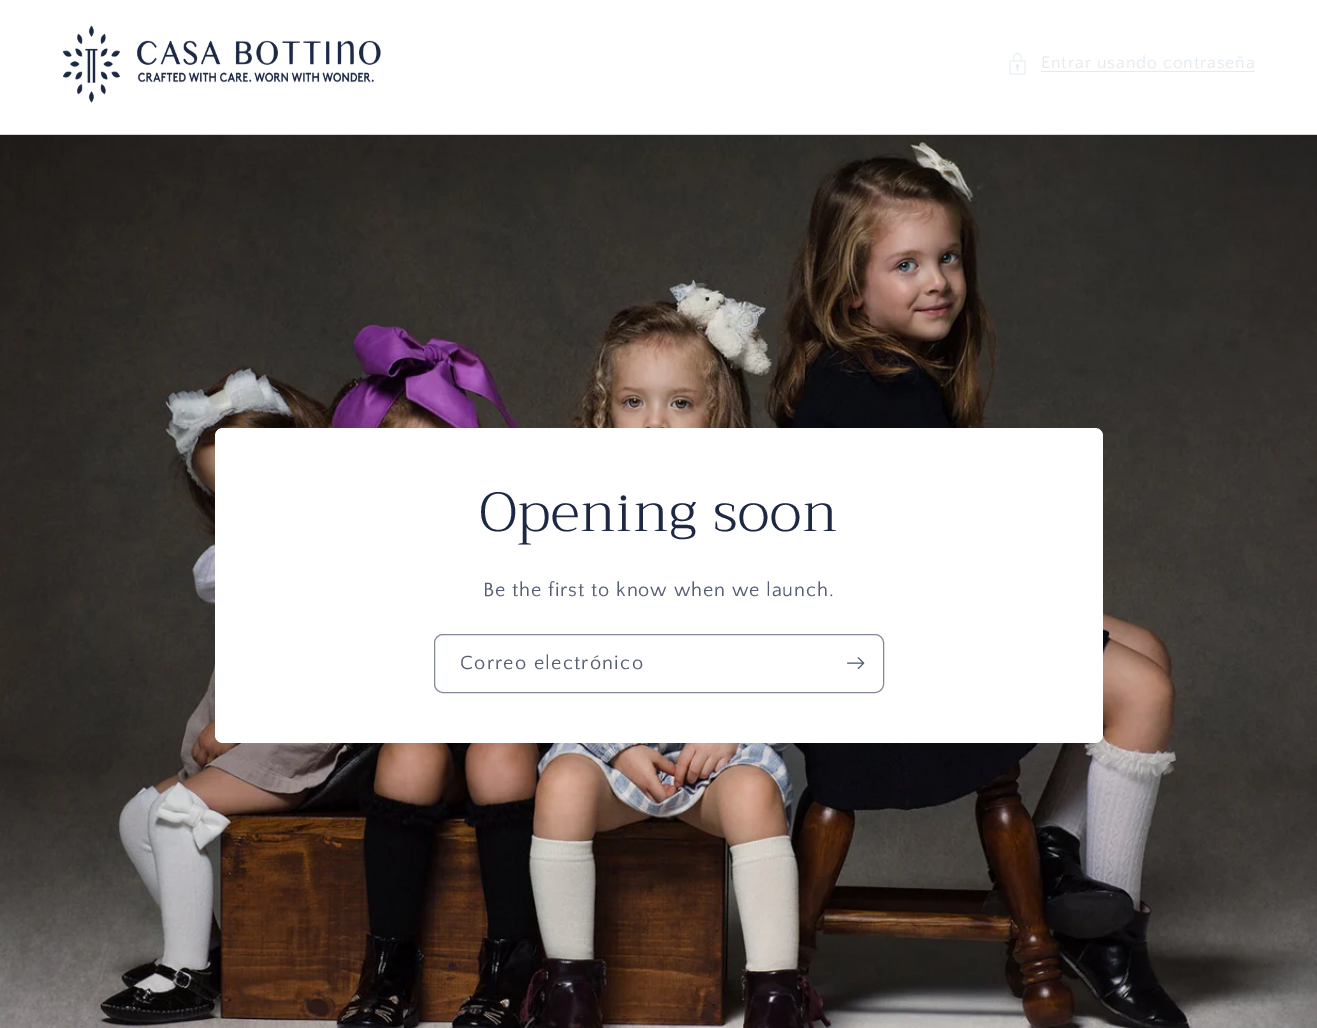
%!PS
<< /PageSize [1317 1028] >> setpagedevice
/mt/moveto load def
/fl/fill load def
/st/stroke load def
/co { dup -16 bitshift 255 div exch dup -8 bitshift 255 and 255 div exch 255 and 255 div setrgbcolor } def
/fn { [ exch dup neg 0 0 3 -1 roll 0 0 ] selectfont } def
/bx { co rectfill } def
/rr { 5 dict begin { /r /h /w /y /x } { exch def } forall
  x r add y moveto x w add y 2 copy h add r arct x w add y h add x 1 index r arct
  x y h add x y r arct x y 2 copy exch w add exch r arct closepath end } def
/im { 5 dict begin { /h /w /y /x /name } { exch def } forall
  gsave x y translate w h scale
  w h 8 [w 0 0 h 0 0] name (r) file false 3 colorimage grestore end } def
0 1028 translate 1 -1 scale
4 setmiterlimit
0 0 1317 1028 16#FFFFFF bx
(media/1.raw) 62 25 319 78 im
(media/2.raw) 1009 53 17 22 im
1041 71 214 1 16#E3EBF1 bx
0 134 1317 1 16#D2D4DA bx
(media/3.raw) 0 135 1317 893 im
16#FFFFFF co
215 428 888 315 8 rr fl
16#838998 co
434.5 634.5 449 58 8.5 rr st
(media/4.raw) 847 657 18 13 im
/QuattrocentoSans-Regular 17.5 fn
16#E3EBF1 co
1041 68 mt .9 0 (Entrar usando contraseña) ashow
/Trirong-Light 55 fn
16#1D2844 co
479 531 mt .75 0 (Opening soon) ashow
/QuattrocentoSans-Regular 20 fn
16#565E73 co
483 596 mt .9 0 (Be the first to know when we launch.) ashow
460 669 mt 1.25 0 (Correo electrónico) ashow
showpage
